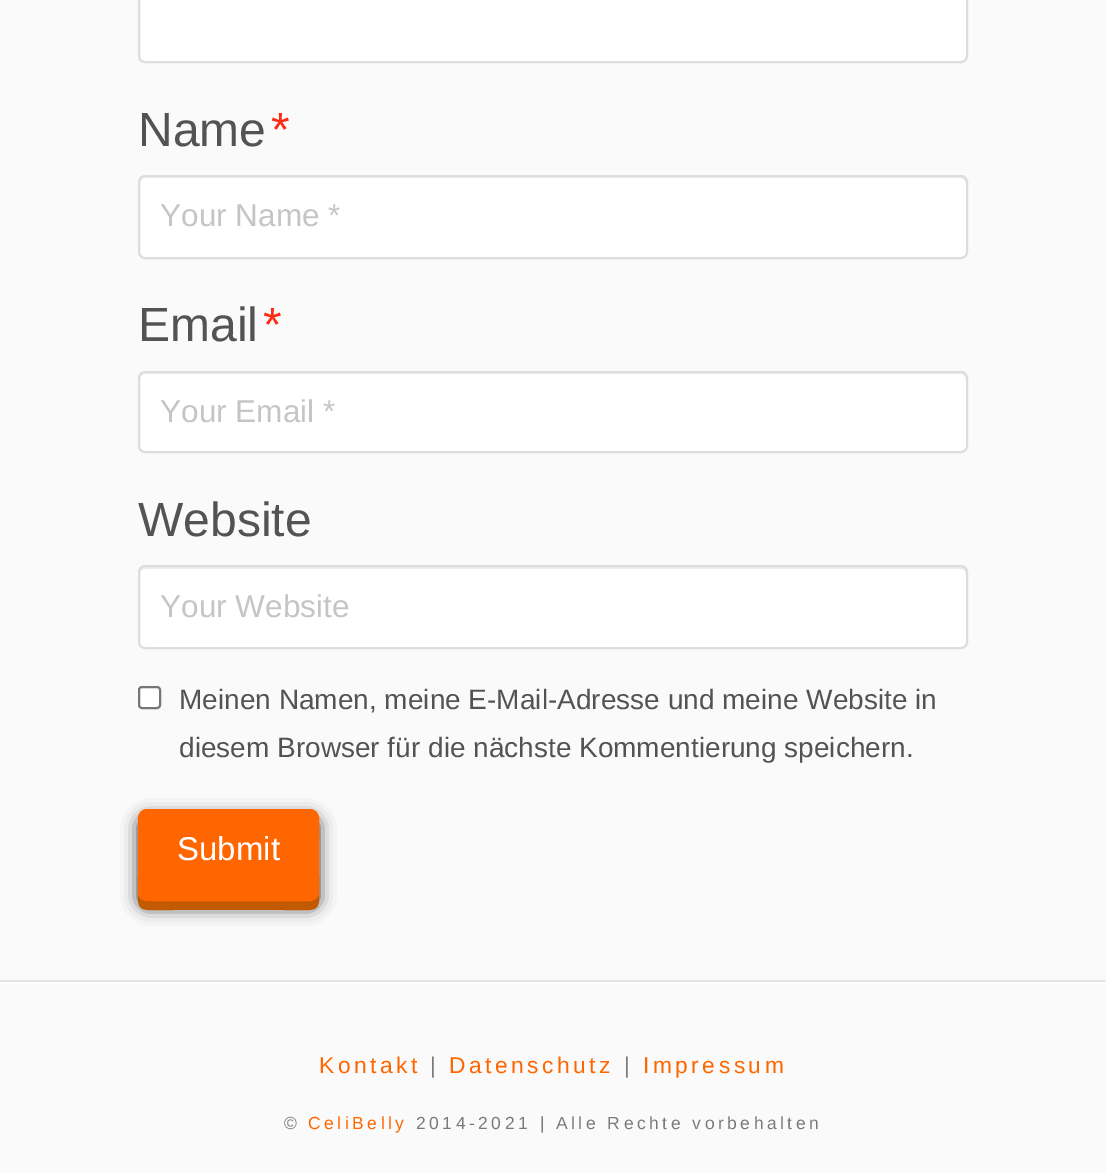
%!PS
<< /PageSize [1106 1173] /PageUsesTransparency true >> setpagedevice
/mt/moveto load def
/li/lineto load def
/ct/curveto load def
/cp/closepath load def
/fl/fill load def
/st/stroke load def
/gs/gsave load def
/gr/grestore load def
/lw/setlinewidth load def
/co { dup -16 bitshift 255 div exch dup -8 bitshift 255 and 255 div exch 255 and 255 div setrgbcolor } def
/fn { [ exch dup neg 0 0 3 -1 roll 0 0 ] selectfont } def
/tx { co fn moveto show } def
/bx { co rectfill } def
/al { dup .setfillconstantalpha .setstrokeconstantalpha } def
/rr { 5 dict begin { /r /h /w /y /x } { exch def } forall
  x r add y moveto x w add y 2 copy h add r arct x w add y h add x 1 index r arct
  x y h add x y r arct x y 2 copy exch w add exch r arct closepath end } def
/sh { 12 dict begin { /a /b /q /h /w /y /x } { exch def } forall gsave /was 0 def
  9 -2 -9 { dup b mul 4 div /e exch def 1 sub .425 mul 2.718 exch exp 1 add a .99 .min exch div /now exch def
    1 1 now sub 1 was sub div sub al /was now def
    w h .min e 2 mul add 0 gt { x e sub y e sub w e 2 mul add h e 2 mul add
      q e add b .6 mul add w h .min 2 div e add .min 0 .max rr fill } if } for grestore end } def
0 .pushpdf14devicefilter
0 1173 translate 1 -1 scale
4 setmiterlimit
0 0 1106 1173 16#FAFAFA bx
16#FFFFFF co
139 -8 828 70 6 rr gs fl gr
16#DDDDDD co
2 lw
st
16#FFFFFF co
138 175 830 84 7 rr fl
16#ECECEC co
145 178 mt 961 178 li 964 178 966 181 966 184 ct 966 182 li 966 179 964 177 961 177 ct 145 177 li 142 177 140 179 140 182 ct 140 184 li 140 181 142 178 145 178 ct cp fl
16#DDDDDD co
139 176 828 82 6 rr st
16#FFFFFF co
138 371 830 82 7 rr fl
16#ECECEC co
145 374 mt 961 374 li 964 374 966 377 966 380 ct 966 378 li 966 375 964 373 961 373 ct 145 373 li 142 373 140 375 140 378 ct 140 380 li 140 377 142 374 145 374 ct cp fl
16#DDDDDD co
139 372 828 80 6 rr st
16#FFFFFF co
138 565 830 84 7 rr fl
16#ECECEC co
145 569 mt 961 569 li 964 569 966 571 966 574 ct 966 572 li 966 569 964 567 961 567 ct 145 567 li 142 567 140 569 140 572 ct 140 574 li 140 571 142 569 145 569 ct cp fl
16#DDDDDD co
139 566 828 82 6 rr st
16#FFFFFF co
139 687 21 21 3 rr gs fl gr
16#767676 co
st
16#000000 co
138 816 181 92 9 8 .75 sh
16#C15A00 co
138 824 mt 138 876 li 138 915 133 910 174 910 ct 283 910 li 324 910 319 915 319 876 ct 319 838 li 319 837 320 827 318 823 ct 318 893 li 318 898 315 901 310 901 ct 147 901 li 142 901 138 898 138 893 ct cp fl
16#FF6600 co
139 810 179 90 8 rr gs fl gr
st
0 982 1106 2 16#FEFEFE bx
0 980 1106 2 16#E5E5E5 bx
(Name) 138 146 /LiberationSans-Regular 48 16#535353 tx
(*) 271 146 /LiberationSans-Regular 48 16#FF2A13 tx
(Your Name *) 160 226 /LiberationSans-Regular 31.5 16#C5C5C5 tx
(Email) 138 341 /LiberationSans-Regular 48 16#535353 tx
(*) 263 341 /LiberationSans-Regular 48 16#FF2A13 tx
(Your Email *) 160 422 /LiberationSans-Regular 31.5 16#C5C5C5 tx
(Website) 138 536 /LiberationSans-Regular 48 16#535353 tx
(Your Website) 160 617 /LiberationSans-Regular 31.5 16#C5C5C5 tx
(Meinen Namen, meine E-Mail-Adresse und meine Website in) 179 709 /LiberationSans-Regular 28 16#535353 tx
(diesem Browser für die nächste Kommentierung speichern.) 179 757 /LiberationSans-Regular 28 16#535353 tx
(Submit) 177 860 /LiberationSans-Regular 33 16#FFFFFF tx
/LiberationSans-Regular 22.75 fn
16#FF6600 co
319 1073 mt 3.5 0 (Kontakt) ashow
16#7A7A7A co
430 1073 mt 3.5 0 (|) ashow
16#FF6600 co
449 1073 mt 3.5 0 (Datenschutz) ashow
16#7A7A7A co
624 1073 mt 3.5 0 (|) ashow
16#FF6600 co
643 1073 mt 3.5 0 (Impressum) ashow
/LiberationSans-Regular 17.5 fn
16#7A7A7A co
284 1129 mt 3.5 0 (©) ashow
16#FF6600 co
308 1129 mt 3.5 0 (CeliBelly) ashow
16#7A7A7A co
416 1129 mt 3.5 0 (2014-2021 | Alle Rechte vorbehalten) ashow
.poppdf14devicefilter showpage
